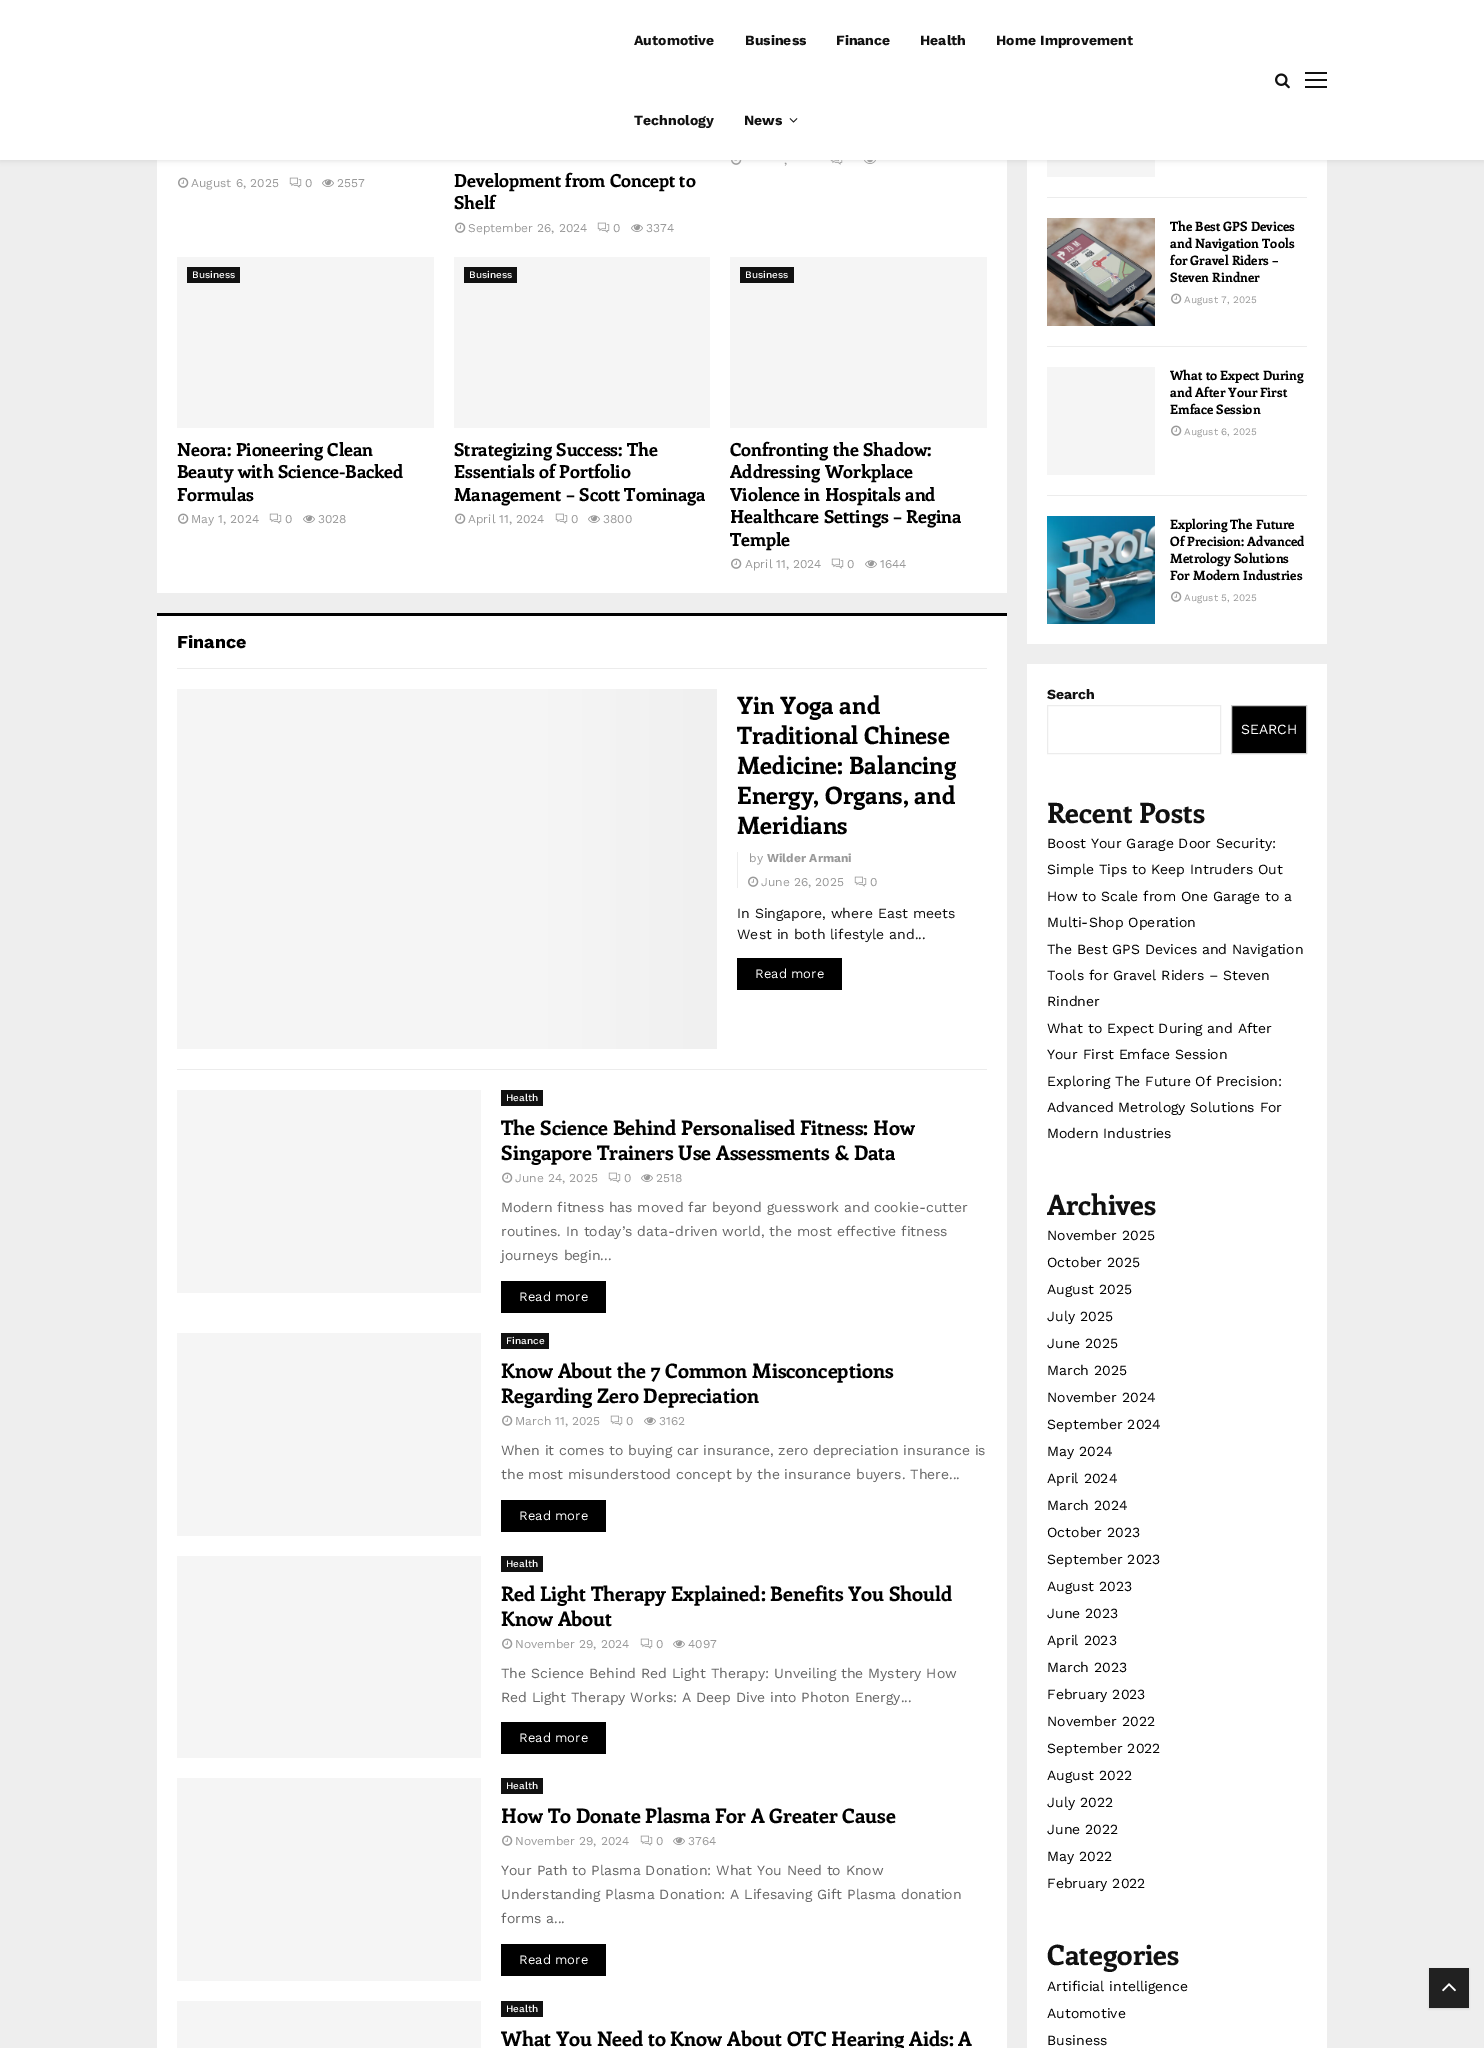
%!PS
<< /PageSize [1484 2048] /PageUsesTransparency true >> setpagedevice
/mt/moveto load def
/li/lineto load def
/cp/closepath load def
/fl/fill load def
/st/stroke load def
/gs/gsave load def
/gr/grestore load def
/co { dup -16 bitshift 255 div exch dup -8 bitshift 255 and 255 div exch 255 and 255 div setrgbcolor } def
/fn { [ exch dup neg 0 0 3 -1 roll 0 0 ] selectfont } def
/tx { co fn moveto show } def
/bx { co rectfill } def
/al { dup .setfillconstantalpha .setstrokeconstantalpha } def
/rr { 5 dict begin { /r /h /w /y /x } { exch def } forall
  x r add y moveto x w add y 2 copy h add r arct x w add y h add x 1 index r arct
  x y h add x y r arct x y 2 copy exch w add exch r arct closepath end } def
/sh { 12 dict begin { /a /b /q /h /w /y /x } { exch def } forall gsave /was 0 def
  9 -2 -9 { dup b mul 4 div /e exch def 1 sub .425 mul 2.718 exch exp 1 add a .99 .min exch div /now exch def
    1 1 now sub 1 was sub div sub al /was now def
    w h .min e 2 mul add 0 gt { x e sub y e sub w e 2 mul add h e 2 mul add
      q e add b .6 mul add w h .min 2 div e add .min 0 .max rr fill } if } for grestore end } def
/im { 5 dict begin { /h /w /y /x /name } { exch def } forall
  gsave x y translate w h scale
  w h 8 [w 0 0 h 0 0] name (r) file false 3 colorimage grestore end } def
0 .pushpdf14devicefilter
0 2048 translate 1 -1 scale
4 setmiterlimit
0 0 1484 2048 16#EEEEEE bx
157 160 850 433 16#FFFFFF bx
(media/3.raw) 731 160 11 5 im
(media/4.raw) 830 160 13 5 im
(media/5.raw) 864 160 12 4 im
1027 160 300 484 16#FFFFFF bx
1047 160 108 17 16#F5F5F5 bx
16#BEBEBE co
0 1 1484 160 0 2.5 .46 sh
0 0 1484 160 16#FFFFFF bx
(media/1.raw) 789 118 9 5 im
(media/2.raw) 1275 73 15 16 im
1305 72 22 2 16#111111 bx
1305 86 22 2 16#111111 bx
1305 79 22 2 16#111111 bx
(media/6.raw) 178 177 11 11 im
(media/7.raw) 289 177 13 11 im
(media/8.raw) 322 179 12 8 im
(media/6.raw) 455 222 11 11 im
(media/7.raw) 597 222 13 11 im
(media/8.raw) 631 224 12 8 im
177 257 257 171 16#F5F5F5 bx
187 267 53 16 16#111111 bx
(media/6.raw) 178 513 11 11 im
(media/7.raw) 269 513 13 11 im
(media/8.raw) 303 515 12 8 im
454 257 256 171 16#F5F5F5 bx
464 267 53 16 16#111111 bx
(media/6.raw) 455 513 11 11 im
(media/7.raw) 555 513 13 11 im
(media/8.raw) 588 515 12 8 im
730 257 257 171 16#F5F5F5 bx
740 267 54 16 16#111111 bx
(media/6.raw) 731 558 11 11 im
(media/7.raw) 831 558 13 11 im
(media/8.raw) 865 560 12 8 im
157 616 850 1432 16#FFFFFF bx
177 668 810 1 16#ECECEC bx
157 613 850 3 16#000000 bx
177 1069 810 1 16#ECECEC bx
gs 177 689 mt 717 689 li 717 1049 li 177 1049 li cp clip newpath
<< /ShadingType 2 /ColorSpace /DeviceRGB /Coords [897 869 -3 869] /Extend [true true] /Function << /FunctionType 3 /Domain [0 1] /Functions [<< /FunctionType 2 /Domain [0 1] /C0 [.961 .961 .961] /C1 [.937 .937 .937] /N 1 >> << /FunctionType 2 /Domain [0 1] /C0 [.937 .937 .937] /C1 [.961 .961 .961] /N 1 >> << /FunctionType 2 /Domain [0 1] /C0 [.961 .961 .961] /C1 [.961 .961 .961] /N 1 >>] /Bounds [.15 .4] /Encode [0 1 0 1 0 1] >> >> shfill gr
737 852 1 36 16#ECECEC bx
(media/6.raw) 748 876 11 11 im
(media/7.raw) 854 876 13 11 im
737 958 105 32 16#000000 bx
177 1090 304 203 16#F5F5F5 bx
501 1090 42 16 16#111111 bx
(media/6.raw) 502 1172 11 11 im
(media/7.raw) 608 1172 13 11 im
(media/8.raw) 641 1174 12 8 im
501 1281 105 32 16#000000 bx
177 1333 304 203 16#F5F5F5 bx
501 1333 48 16 16#111111 bx
(media/6.raw) 502 1415 11 11 im
(media/7.raw) 610 1415 13 11 im
(media/8.raw) 644 1417 12 8 im
501 1500 105 32 16#000000 bx
177 1556 304 202 16#F5F5F5 bx
501 1556 42 16 16#111111 bx
(media/6.raw) 502 1638 11 11 im
(media/7.raw) 640 1638 13 11 im
(media/8.raw) 673 1640 12 8 im
501 1722 105 32 16#000000 bx
177 1778 304 203 16#F5F5F5 bx
501 1778 42 16 16#111111 bx
(media/6.raw) 502 1835 11 11 im
(media/7.raw) 640 1835 13 11 im
(media/8.raw) 673 1837 12 8 im
501 1944 105 32 16#000000 bx
177 2001 304 47 16#F5F5F5 bx
501 2001 42 16 16#111111 bx
1047 197 260 1 16#ECECEC bx
1047 346 260 1 16#ECECEC bx
(media/9.raw) 1047 218 108 108 im
(media/6.raw) 1171 293 11 11 im
1047 495 260 1 16#ECECEC bx
1047 367 108 108 16#F5F5F5 bx
(media/6.raw) 1171 425 11 11 im
(media/10.raw) 1047 516 108 108 im
(media/6.raw) 1171 591 11 11 im
1027 664 300 1384 16#FFFFFF bx
16#ECECEC co
1047.5 705.5 173 48 rectstroke
16#000000 co
1231.5 705.5 mt 1306.5 705.5 li 1306.5 753.5 li 1231.5 753.5 li cp gs fl gr
16#CCCCCC co
st
16#000000 co
1429 1969 40 40 0 1 .1 sh
1429 1968 40 40 16#212121 bx
(media/11.raw) 1442 1983 14 9 im
(Automotive) 634 45 /WorkSans-Bold 14 16#111111 tx
(Business) 745 45 /WorkSans-Bold 14 16#111111 tx
(Finance) 836 45 /WorkSans-Bold 14 16#111111 tx
(Health) 920 45 /WorkSans-Bold 14 16#111111 tx
(Home Improvement) 996 45 /WorkSans-Bold 14 16#111111 tx
(Technology) 634 125 /WorkSans-Bold 14 16#111111 tx
(News) 744 125 /WorkSans-Bold 14 16#111111 tx
(,) 784 164 /WorkSans-Regular 12 16#999999 tx
(August 6, 2025) 191 187 /WorkSans-Regular 12 16#999999 tx
(0) 305 187 /WorkSans-Regular 12 16#999999 tx
(2557) 337 187 /WorkSans-Regular 12 16#999999 tx
(Development from Concept to) 454 187 /Enriqueta-Bold 18 16#000000 tx
(Shelf) 454 209 /Enriqueta-Bold 18 16#000000 tx
(September 26, 2024) 468 232 /WorkSans-Regular 12 16#999999 tx
(0) 613 232 /WorkSans-Regular 12 16#999999 tx
(3374) 646 232 /WorkSans-Regular 12 16#999999 tx
(Business) 192 278 /WorkSans-Medium 10 16#FFFFFF tx
(Neora: Pioneering Clean) 177 456 /Enriqueta-Bold 18 16#000000 tx
(Beauty with Science-Backed) 177 478 /Enriqueta-Bold 18 16#000000 tx
(Formulas) 177 501 /Enriqueta-Bold 18 16#000000 tx
(May 1, 2024) 191 523 /WorkSans-Regular 12 16#999999 tx
(0) 285 523 /WorkSans-Regular 12 16#999999 tx
(3028) 318 523 /WorkSans-Regular 12 16#999999 tx
(Business) 469 278 /WorkSans-Medium 10 16#FFFFFF tx
(Strategizing Success: The) 454 456 /Enriqueta-Bold 18 16#000000 tx
(Essentials of Portfolio) 454 478 /Enriqueta-Bold 18 16#000000 tx
(Management – Scott Tominaga) 454 501 /Enriqueta-Bold 18 16#000000 tx
(April 11, 2024) 468 523 /WorkSans-Regular 12 16#999999 tx
(0) 571 523 /WorkSans-Regular 12 16#999999 tx
(3800) 603 523 /WorkSans-Regular 12 16#999999 tx
(Business) 745 278 /WorkSans-Medium 10 16#FFFFFF tx
(Confronting the Shadow:) 730 456 /Enriqueta-Bold 18 16#000000 tx
(Addressing Workplace) 730 478 /Enriqueta-Bold 18 16#000000 tx
(Violence in Hospitals and) 730 501 /Enriqueta-Bold 18 16#000000 tx
(Healthcare Settings – Regina) 730 523 /Enriqueta-Bold 18 16#000000 tx
(Temple) 730 546 /Enriqueta-Bold 18 16#000000 tx
(April 11, 2024) 745 568 /WorkSans-Regular 12 16#999999 tx
(0) 847 568 /WorkSans-Regular 12 16#999999 tx
(1644) 880 568 /WorkSans-Regular 12 16#999999 tx
(Finance) 177 648 /WorkSans-Bold 18 16#000000 tx
(Yin Yoga and) 737 714 /Enriqueta-Bold 24 16#000000 tx
(Traditional Chinese) 737 744 /Enriqueta-Bold 24 16#000000 tx
(Medicine: Balancing) 737 774 /Enriqueta-Bold 24 16#000000 tx
(Energy, Organs, and) 737 804 /Enriqueta-Bold 24 16#000000 tx
(Meridians) 737 834 /Enriqueta-Bold 24 16#000000 tx
(by) 749 862 /WorkSans-Regular 12 16#999999 tx
(Wilder Armani) 767 862 /WorkSans-Bold 12 16#999999 tx
(June 26, 2025) 761 886 /WorkSans-Regular 12 16#999999 tx
(0) 870 886 /WorkSans-Regular 12 16#999999 tx
(In Singapore, where East meets) 737 918 /WorkSans-Regular 14 16#111111 tx
(West in both lifestyle and...) 737 939 /WorkSans-Regular 14 16#111111 tx
(Read more) 755 978 /WorkSans-Regular 13 16#FFFFFF tx
(Health) 506 1101 /WorkSans-Medium 10 16#FFFFFF tx
(The Science Behind Personalised Fitness: How) 501 1135 /Enriqueta-Bold 20 16#000000 tx
(Singapore Trainers Use Assessments & Data) 501 1160 /Enriqueta-Bold 20 16#000000 tx
(June 24, 2025) 515 1182 /WorkSans-Regular 12 16#999999 tx
(0) 624 1182 /WorkSans-Regular 12 16#999999 tx
(2518) 656 1182 /WorkSans-Regular 12 16#999999 tx
(Modern fitness has moved far beyond guesswork and cookie-cutter) 501 1212 /WorkSans-Regular 14 16#666666 tx
(routines. In today’s data-driven world, the most effective fitness) 501 1236 /WorkSans-Regular 14 16#666666 tx
(journeys begin...) 501 1260 /WorkSans-Regular 14 16#666666 tx
(Read more) 519 1301 /WorkSans-Regular 13 16#FFFFFF tx
(Finance) 506 1344 /WorkSans-Medium 10 16#FFFFFF tx
(Know About the 7 Common Misconceptions) 501 1378 /Enriqueta-Bold 20 16#000000 tx
(Regarding Zero Depreciation) 501 1403 /Enriqueta-Bold 20 16#000000 tx
(March 11, 2025) 515 1425 /WorkSans-Regular 12 16#999999 tx
(0) 626 1425 /WorkSans-Regular 12 16#999999 tx
(3162) 659 1425 /WorkSans-Regular 12 16#999999 tx
(When it comes to buying car insurance, zero depreciation insurance is) 501 1455 /WorkSans-Regular 14 16#666666 tx
(the most misunderstood concept by the insurance buyers. There...) 501 1479 /WorkSans-Regular 14 16#666666 tx
(Read more) 519 1520 /WorkSans-Regular 13 16#FFFFFF tx
(Health) 506 1567 /WorkSans-Medium 10 16#FFFFFF tx
(Red Light Therapy Explained: Benefits You Should) 501 1601 /Enriqueta-Bold 20 16#000000 tx
(Know About) 501 1626 /Enriqueta-Bold 20 16#000000 tx
(November 29, 2024) 515 1648 /WorkSans-Regular 12 16#999999 tx
(0) 656 1648 /WorkSans-Regular 12 16#999999 tx
(4097) 688 1648 /WorkSans-Regular 12 16#999999 tx
(The Science Behind Red Light Therapy: Unveiling the Mystery How) 501 1678 /WorkSans-Regular 14 16#666666 tx
(Red Light Therapy Works: A Deep Dive into Photon Energy...) 501 1702 /WorkSans-Regular 14 16#666666 tx
(Read more) 519 1742 /WorkSans-Regular 13 16#FFFFFF tx
(Health) 506 1789 /WorkSans-Medium 10 16#FFFFFF tx
(How To Donate Plasma For A Greater Cause) 501 1823 /Enriqueta-Bold 20 16#000000 tx
(November 29, 2024) 515 1845 /WorkSans-Regular 12 16#999999 tx
(0) 656 1845 /WorkSans-Regular 12 16#999999 tx
(3764) 688 1845 /WorkSans-Regular 12 16#999999 tx
(Your Path to Plasma Donation: What You Need to Know) 501 1875 /WorkSans-Regular 14 16#666666 tx
(Understanding Plasma Donation: A Lifesaving Gift Plasma donation) 501 1899 /WorkSans-Regular 14 16#666666 tx
(forms a...) 501 1923 /WorkSans-Regular 14 16#666666 tx
(Read more) 519 1964 /WorkSans-Regular 13 16#FFFFFF tx
(Health) 506 2012 /WorkSans-Medium 10 16#FFFFFF tx
(What You Need to Know About OTC Hearing Aids: A) 501 2046 /Enriqueta-Bold 20 16#000000 tx
(The Best GPS Devices) 1170 231 /Enriqueta-Bold 13 16#000000 tx
(and Navigation Tools) 1170 248 /Enriqueta-Bold 13 16#000000 tx
(for Gravel Riders –) 1170 265 /Enriqueta-Bold 13 16#000000 tx
(Steven Rindner) 1170 282 /Enriqueta-Bold 13 16#000000 tx
(August 7, 2025) 1184 303 /WorkSans-Regular 10 16#999999 tx
(What to Expect During) 1170 380 /Enriqueta-Bold 13 16#000000 tx
(and After Your First) 1170 397 /Enriqueta-Bold 13 16#000000 tx
(Emface Session) 1170 414 /Enriqueta-Bold 13 16#000000 tx
(August 6, 2025) 1184 435 /WorkSans-Regular 10 16#999999 tx
(Exploring The Future) 1170 529 /Enriqueta-Bold 13 16#000000 tx
(Of Precision: Advanced) 1170 546 /Enriqueta-Bold 13 16#000000 tx
(Metrology Solutions) 1170 563 /Enriqueta-Bold 13 16#000000 tx
(For Modern Industries) 1170 580 /Enriqueta-Bold 13 16#000000 tx
(August 5, 2025) 1184 601 /WorkSans-Regular 10 16#999999 tx
(Search) 1047 699 /WorkSans-Bold 14 16#111111 tx
(SEARCH) 1241 734 /WorkSans-Regular 14 16#FFFFFF tx
(Recent Posts) 1047 823 /Enriqueta-Bold 28 16#111111 tx
(Boost Your Garage Door Security:) 1047 848 /WorkSans-Regular 14 16#000000 tx
(Simple Tips to Keep Intruders Out) 1047 874 /WorkSans-Regular 14 16#000000 tx
(How to Scale from One Garage to a) 1047 901 /WorkSans-Regular 14 16#000000 tx
(Multi-Shop Operation) 1047 927 /WorkSans-Regular 14 16#000000 tx
(The Best GPS Devices and Navigation) 1047 954 /WorkSans-Regular 14 16#000000 tx
(Tools for Gravel Riders – Steven) 1047 980 /WorkSans-Regular 14 16#000000 tx
(Rindner) 1047 1006 /WorkSans-Regular 14 16#000000 tx
(What to Expect During and After) 1047 1033 /WorkSans-Regular 14 16#000000 tx
(Your First Emface Session) 1047 1059 /WorkSans-Regular 14 16#000000 tx
(Exploring The Future Of Precision:) 1047 1086 /WorkSans-Regular 14 16#000000 tx
(Advanced Metrology Solutions For) 1047 1112 /WorkSans-Regular 14 16#000000 tx
(Modern Industries) 1047 1138 /WorkSans-Regular 14 16#000000 tx
(Archives) 1047 1215 /Enriqueta-Bold 28 16#111111 tx
(November 2025) 1047 1240 /WorkSans-Regular 14 16#000000 tx
(October 2025) 1047 1267 /WorkSans-Regular 14 16#000000 tx
(August 2025) 1047 1294 /WorkSans-Regular 14 16#000000 tx
(July 2025) 1047 1321 /WorkSans-Regular 14 16#000000 tx
(June 2025) 1047 1348 /WorkSans-Regular 14 16#000000 tx
(March 2025) 1047 1375 /WorkSans-Regular 14 16#000000 tx
(November 2024) 1047 1402 /WorkSans-Regular 14 16#000000 tx
(September 2024) 1047 1429 /WorkSans-Regular 14 16#000000 tx
(May 2024) 1047 1456 /WorkSans-Regular 14 16#000000 tx
(April 2024) 1047 1483 /WorkSans-Regular 14 16#000000 tx
(March 2024) 1047 1510 /WorkSans-Regular 14 16#000000 tx
(October 2023) 1047 1537 /WorkSans-Regular 14 16#000000 tx
(September 2023) 1047 1564 /WorkSans-Regular 14 16#000000 tx
(August 2023) 1047 1591 /WorkSans-Regular 14 16#000000 tx
(June 2023) 1047 1618 /WorkSans-Regular 14 16#000000 tx
(April 2023) 1047 1645 /WorkSans-Regular 14 16#000000 tx
(March 2023) 1047 1672 /WorkSans-Regular 14 16#000000 tx
(February 2023) 1047 1699 /WorkSans-Regular 14 16#000000 tx
(November 2022) 1047 1726 /WorkSans-Regular 14 16#000000 tx
(September 2022) 1047 1753 /WorkSans-Regular 14 16#000000 tx
(August 2022) 1047 1780 /WorkSans-Regular 14 16#000000 tx
(July 2022) 1047 1807 /WorkSans-Regular 14 16#000000 tx
(June 2022) 1047 1834 /WorkSans-Regular 14 16#000000 tx
(May 2022) 1047 1861 /WorkSans-Regular 14 16#000000 tx
(February 2022) 1047 1888 /WorkSans-Regular 14 16#000000 tx
(Categories) 1047 1965 /Enriqueta-Bold 28 16#111111 tx
(Artificial intelligence) 1047 1991 /WorkSans-Regular 14 16#000000 tx
(Automotive) 1047 2018 /WorkSans-Regular 14 16#000000 tx
(Business) 1047 2045 /WorkSans-Regular 14 16#000000 tx
.poppdf14devicefilter showpage
